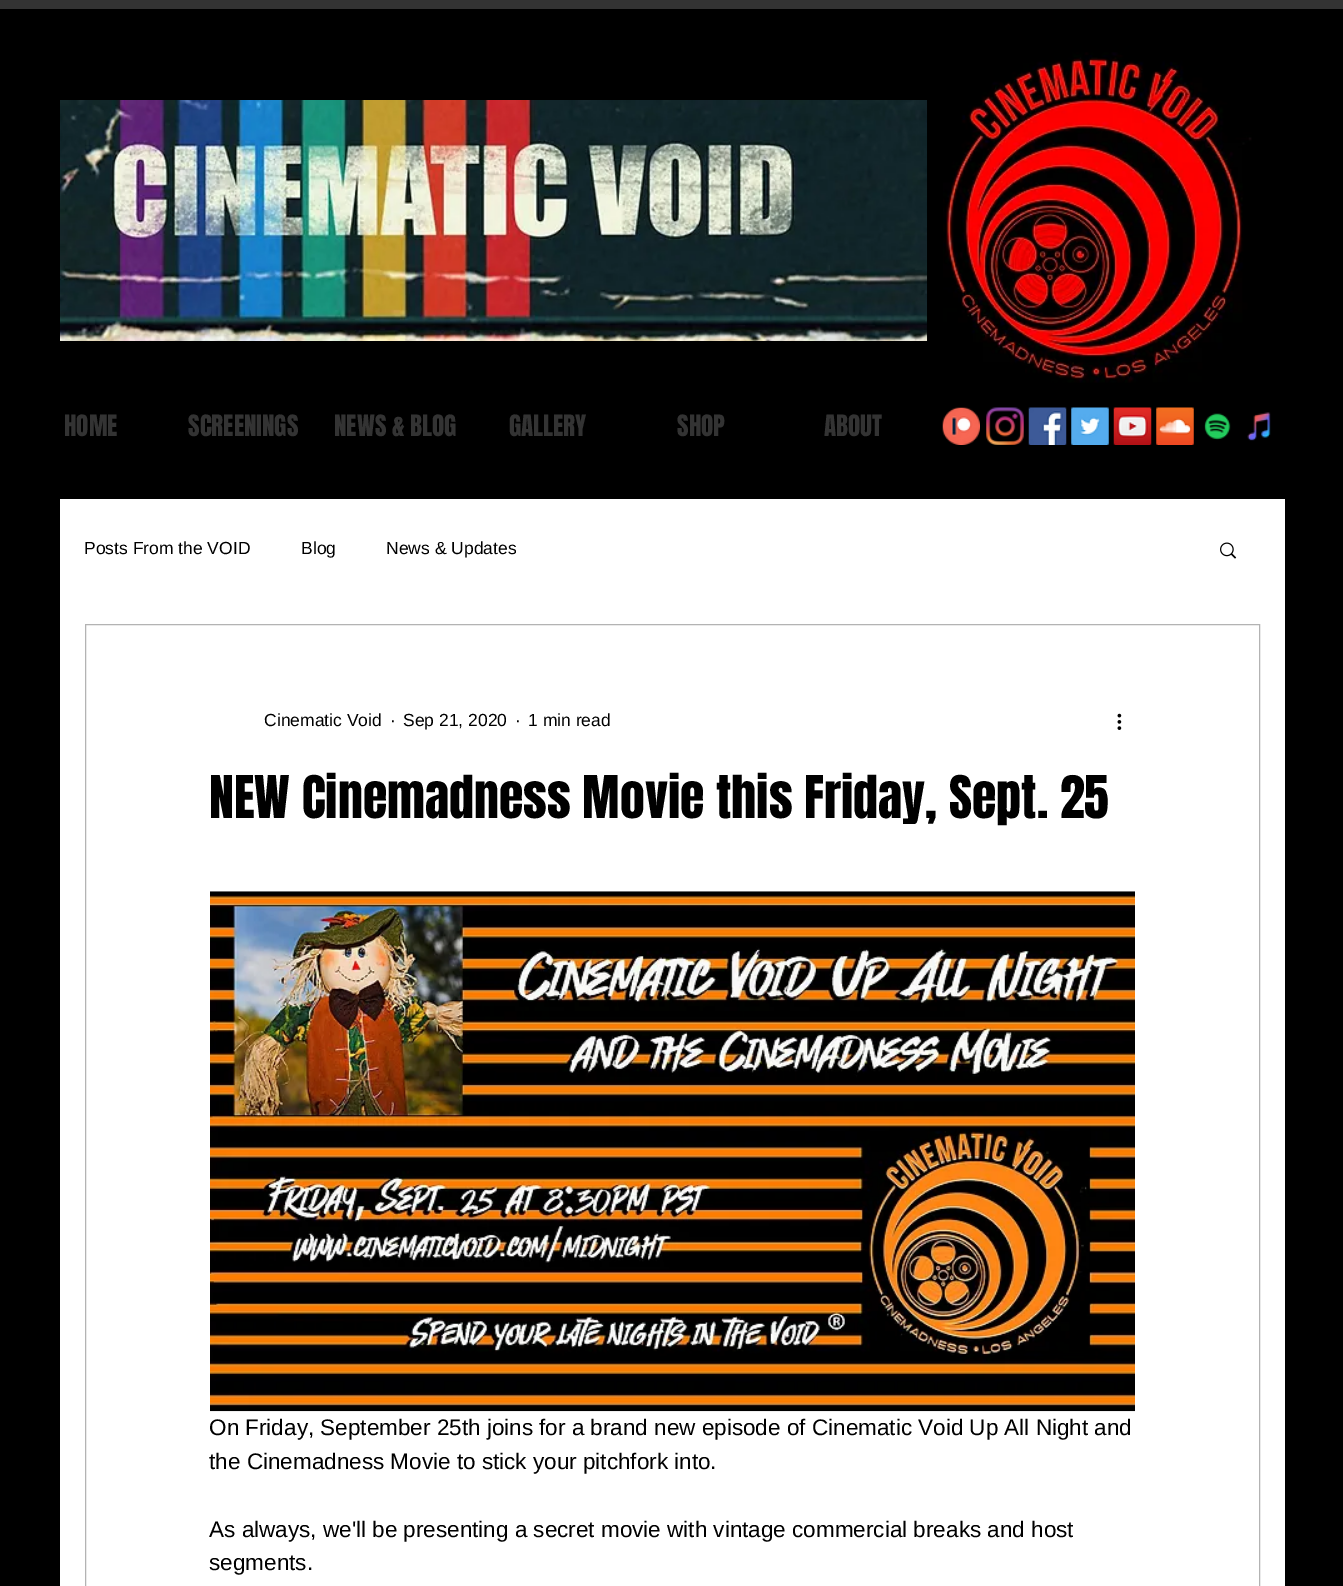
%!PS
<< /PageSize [1343 1586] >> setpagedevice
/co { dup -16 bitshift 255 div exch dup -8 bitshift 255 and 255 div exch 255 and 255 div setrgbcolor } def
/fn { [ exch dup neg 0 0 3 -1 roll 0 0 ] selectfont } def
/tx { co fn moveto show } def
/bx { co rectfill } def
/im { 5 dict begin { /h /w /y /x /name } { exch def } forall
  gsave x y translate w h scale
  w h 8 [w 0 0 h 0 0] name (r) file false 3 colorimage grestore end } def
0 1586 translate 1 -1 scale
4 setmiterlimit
0 0 1343 1586 16#000000 bx
0 0 1343 9 16#333333 bx
(media/1.raw) 60 100 868 241 im
(media/2.raw) 943 52 309 331 im
(media/3.raw) 942 407 38 38 im
(media/4.raw) 986 407 38 38 im
(media/5.raw) 1028 407 39 38 im
(media/6.raw) 1071 407 38 38 im
(media/7.raw) 1113 407 39 38 im
(media/8.raw) 1156 407 38 38 im
(media/9.raw) 1204 413 27 27 im
(media/10.raw) 1247 412 24 29 im
60 499 1225 1087 16#FFFFFF bx
(media/11.raw) 1220 542 17 17 im
16#B3B3B3 co
85.5 624.5 1174 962 rectstroke
(media/12.raw) 1117 713 5 17 im
(media/13.raw) 210 891 925 521 im
(HOME) 64 436 /Anton-Regular 25 16#333333 tx
(SCREENINGS) 188 436 /Anton-Regular 25 16#333333 tx
(NEWS & BLOG) 334 436 /Anton-Regular 25 16#333333 tx
(GALLERY) 509 436 /Anton-Regular 25 16#333333 tx
(SHOP) 677 436 /Anton-Regular 25 16#333333 tx
(ABOUT) 824 436 /Anton-Regular 25 16#333333 tx
(Posts From the VOID) 84 554 /LiberationSans-Regular 17.5 16#000000 tx
(Blog) 301 554 /LiberationSans-Regular 17.5 16#000000 tx
(News & Updates) 386 554 /LiberationSans-Regular 17.5 16#000000 tx
(Cinematic Void) 264 726 /LiberationSans-Regular 17.5 16#000000 tx
(·) 390 726 /LiberationSans-Regular 17.5 16#000000 tx
(Sep 21, 2020) 403 726 /LiberationSans-Regular 17.5 16#000000 tx
(·) 515 726 /LiberationSans-Regular 17.5 16#000000 tx
(1 min read) 528 726 /LiberationSans-Regular 17.5 16#000000 tx
(NEW Cinemadness Movie this Friday, Sept. 25) 209 818 /Anton-Regular 50 16#000000 tx
(On Friday, September 25th joins for a brand new episode of Cinematic Void Up All Night and) 209 1435 /LiberationSans-Regular 22.5 16#000000 tx
(the Cinemadness Movie to stick your pitchfork into.) 209 1469 /LiberationSans-Regular 22.5 16#000000 tx
(As always, we'll be presenting a secret movie with vintage commercial breaks and host) 209 1537 /LiberationSans-Regular 22.5 16#000000 tx
(segments.) 209 1570 /LiberationSans-Regular 22.5 16#000000 tx
showpage
